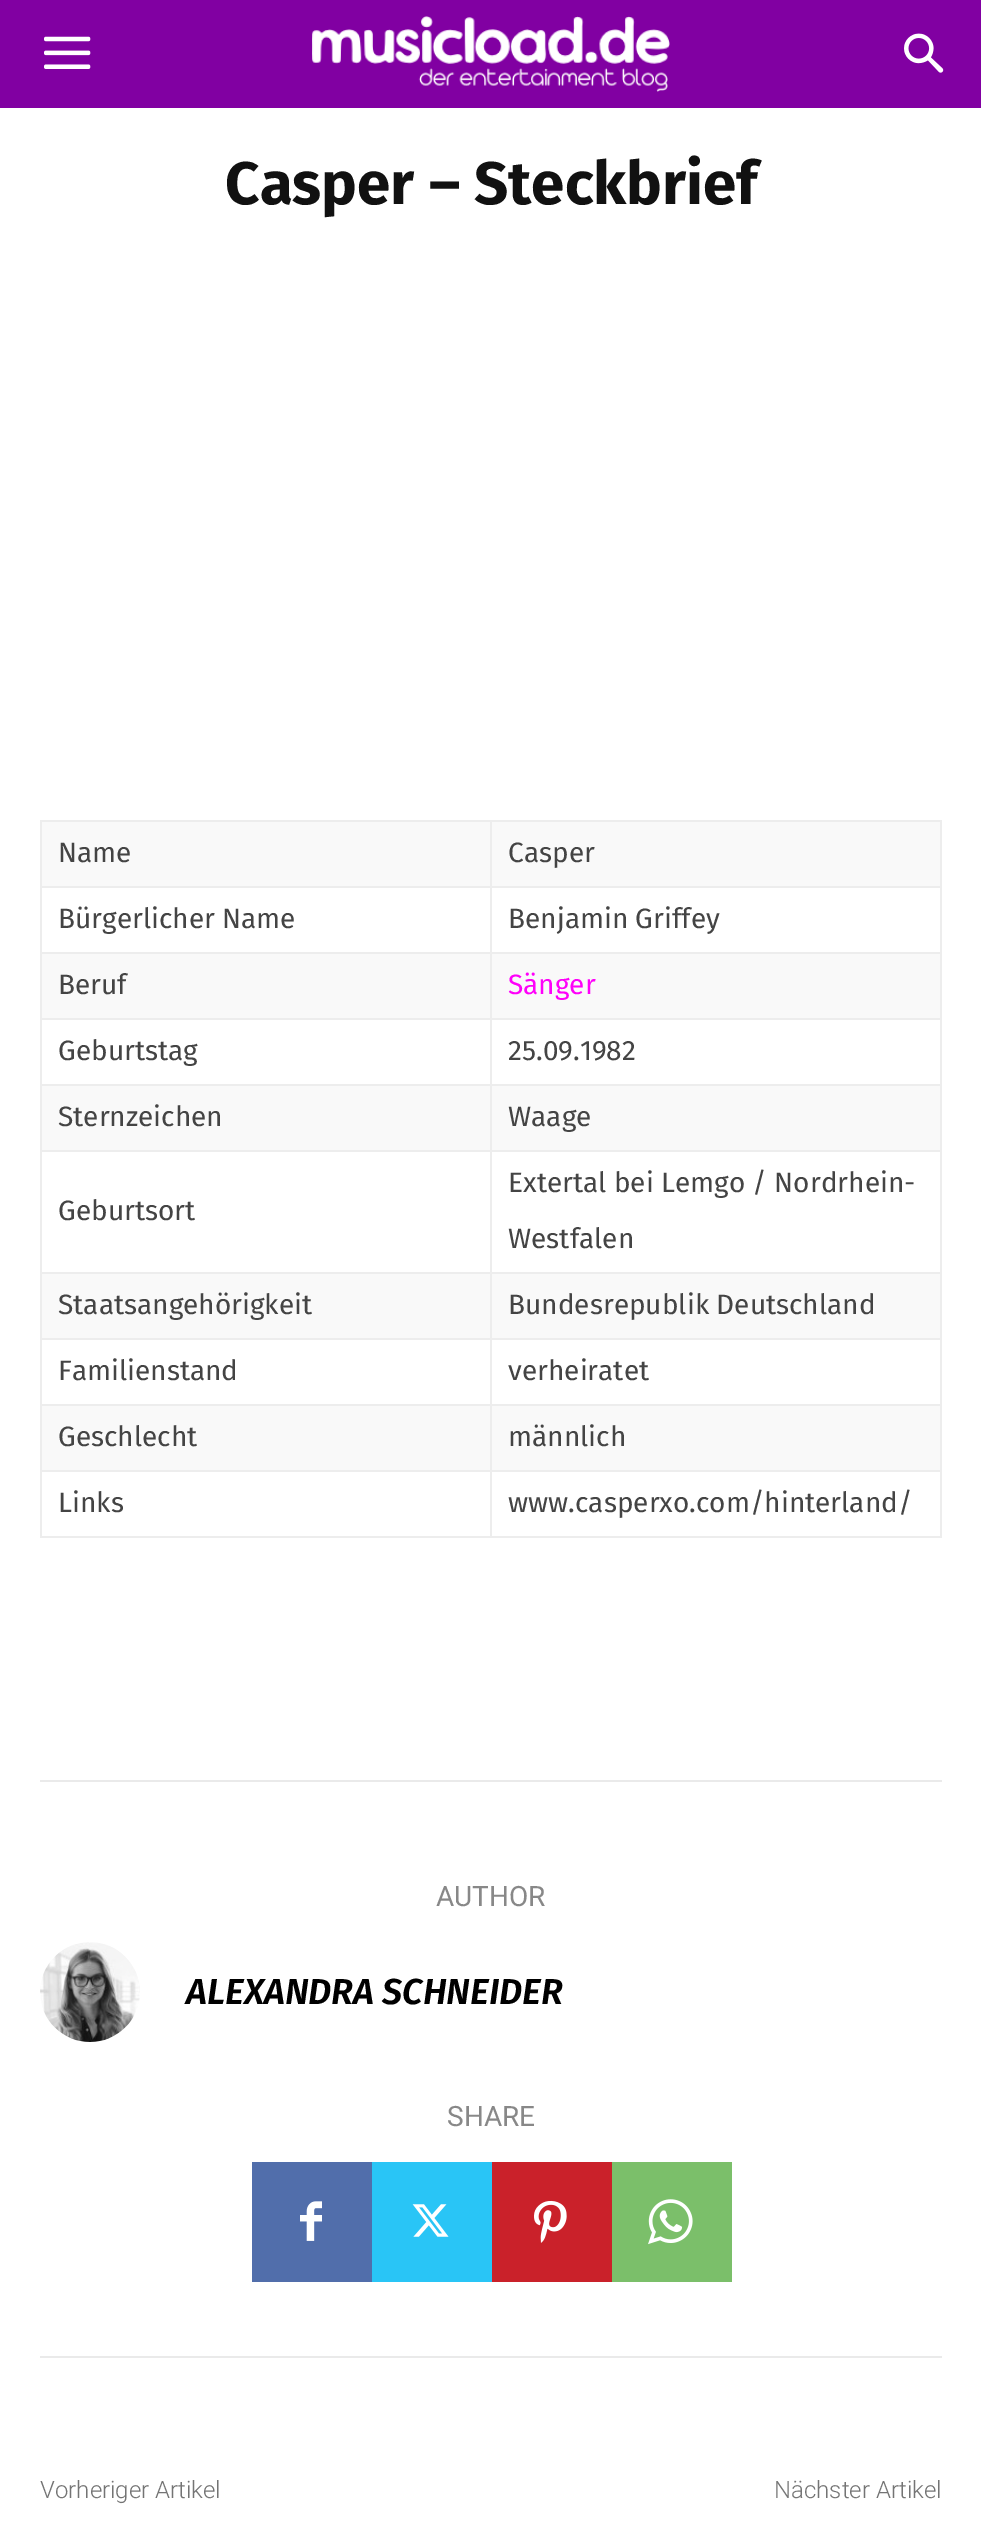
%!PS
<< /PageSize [981 2522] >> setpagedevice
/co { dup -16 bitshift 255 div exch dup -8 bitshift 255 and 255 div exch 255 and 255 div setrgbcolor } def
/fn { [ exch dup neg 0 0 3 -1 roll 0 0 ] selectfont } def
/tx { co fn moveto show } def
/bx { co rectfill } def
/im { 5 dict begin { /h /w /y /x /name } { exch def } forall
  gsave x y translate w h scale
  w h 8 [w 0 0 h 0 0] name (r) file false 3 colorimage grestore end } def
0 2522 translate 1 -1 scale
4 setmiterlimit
0 0 981 2522 16#FFFFFF bx
0 0 981 108 16#8100A2 bx
(media/1.raw) 44 36 47 33 im
(media/2.raw) 312 16 358 76 im
(media/3.raw) 904 33 40 40 im
42 822 898 64 16#F9F9F9 bx
490 820 452 2 16#EDEDED bx
490 886 452 2 16#EDEDED bx
490 952 452 2 16#EDEDED bx
42 954 898 64 16#F9F9F9 bx
490 1018 452 2 16#EDEDED bx
490 1084 452 2 16#EDEDED bx
42 1086 898 64 16#F9F9F9 bx
490 1150 452 2 16#EDEDED bx
490 1272 452 2 16#EDEDED bx
42 1274 898 64 16#F9F9F9 bx
490 1338 452 2 16#EDEDED bx
490 1404 452 2 16#EDEDED bx
42 1406 898 64 16#F9F9F9 bx
490 1470 452 2 16#EDEDED bx
940 1470 2 68 16#EDEDED bx
490 1536 452 2 16#EDEDED bx
490 1470 2 68 16#EDEDED bx
40 1470 452 2 16#EDEDED bx
490 1404 2 68 16#EDEDED bx
40 1404 452 2 16#EDEDED bx
490 1338 2 68 16#EDEDED bx
40 1338 452 2 16#EDEDED bx
490 1272 2 68 16#EDEDED bx
40 1272 452 2 16#EDEDED bx
490 1150 2 124 16#EDEDED bx
40 1150 452 2 16#EDEDED bx
490 1084 2 68 16#EDEDED bx
40 1084 452 2 16#EDEDED bx
490 1018 2 68 16#EDEDED bx
40 1018 452 2 16#EDEDED bx
490 952 2 68 16#EDEDED bx
40 952 452 2 16#EDEDED bx
490 886 2 68 16#EDEDED bx
40 886 452 2 16#EDEDED bx
490 820 2 68 16#EDEDED bx
40 820 452 2 16#EDEDED bx
40 1536 452 2 16#EDEDED bx
40 1470 2 68 16#EDEDED bx
40 1404 2 68 16#EDEDED bx
40 1338 2 68 16#EDEDED bx
40 1272 2 68 16#EDEDED bx
40 1150 2 124 16#EDEDED bx
40 1084 2 68 16#EDEDED bx
40 1018 2 68 16#EDEDED bx
40 952 2 68 16#EDEDED bx
40 886 2 68 16#EDEDED bx
40 820 2 68 16#EDEDED bx
940 1404 2 68 16#EDEDED bx
940 1338 2 68 16#EDEDED bx
940 1272 2 68 16#EDEDED bx
940 1150 2 124 16#EDEDED bx
940 1084 2 68 16#EDEDED bx
940 1018 2 68 16#EDEDED bx
940 952 2 68 16#EDEDED bx
940 886 2 68 16#EDEDED bx
940 820 2 68 16#EDEDED bx
40 1780 902 2 16#EAEAEA bx
40 2356 902 2 16#EAEAEA bx
(media/4.raw) 40 1942 100 100 im
252 2162 120 120 16#516EAB bx
(media/5.raw) 300 2201 22 40 im
372 2162 120 120 16#29C5F6 bx
(media/6.raw) 412 2204 37 33 im
492 2162 120 120 16#CA212A bx
(media/7.raw) 534 2200 33 43 im
612 2162 120 120 16#7BBF6A bx
(media/8.raw) 648 2199 45 46 im
(Casper – Steckbrief) 225 204 /FiraSans-Bold 60 16#111111 tx
(Name) 58 862 /FiraSans-Regular 28 16#444444 tx
(Casper) 508 862 /FiraSans-Regular 28 16#444444 tx
(Bürgerlicher Name) 58 928 /FiraSans-Regular 28 16#444444 tx
(Benjamin Griffey) 508 928 /FiraSans-Regular 28 16#444444 tx
(Beruf) 58 994 /FiraSans-Regular 28 16#444444 tx
(Sänger) 508 994 /FiraSans-Regular 28 16#FF00FA tx
(Geburtstag) 58 1060 /FiraSans-Regular 28 16#444444 tx
(25.09.1982) 508 1060 /FiraSans-Regular 28 16#444444 tx
(Sternzeichen) 58 1126 /FiraSans-Regular 28 16#444444 tx
(Waage) 508 1126 /FiraSans-Regular 28 16#444444 tx
(Geburtsort) 58 1220 /FiraSans-Regular 28 16#444444 tx
(Extertal bei Lemgo / Nordrhein-) 508 1192 /FiraSans-Regular 28 16#444444 tx
(Westfalen) 508 1248 /FiraSans-Regular 28 16#444444 tx
(Staatsangehörigkeit) 58 1314 /FiraSans-Regular 28 16#444444 tx
(Bundesrepublik Deutschland) 508 1314 /FiraSans-Regular 28 16#444444 tx
(Familienstand) 58 1380 /FiraSans-Regular 28 16#444444 tx
(verheiratet) 508 1380 /FiraSans-Regular 28 16#444444 tx
(Geschlecht) 58 1446 /FiraSans-Regular 28 16#444444 tx
(männlich) 508 1446 /FiraSans-Regular 28 16#444444 tx
(Links) 58 1512 /FiraSans-Regular 28 16#444444 tx
(www.casperxo.com/hinterland/) 508 1512 /FiraSans-Regular 28 16#444444 tx
(AUTHOR) 436 1906 /Roboto-Regular 28 16#888888 tx
(ALEXANDRA SCHNEIDER) 186 2004 /FiraSans-SemiBoldItalic 36 16#000000 tx
(SHARE) 447 2126 /Roboto-Regular 28 16#888888 tx
(Vorheriger Artikel) 40 2498 /Roboto-Light 24 16#747474 tx
(Nächster Artikel) 774 2498 /Roboto-Light 24 16#747474 tx
showpage
